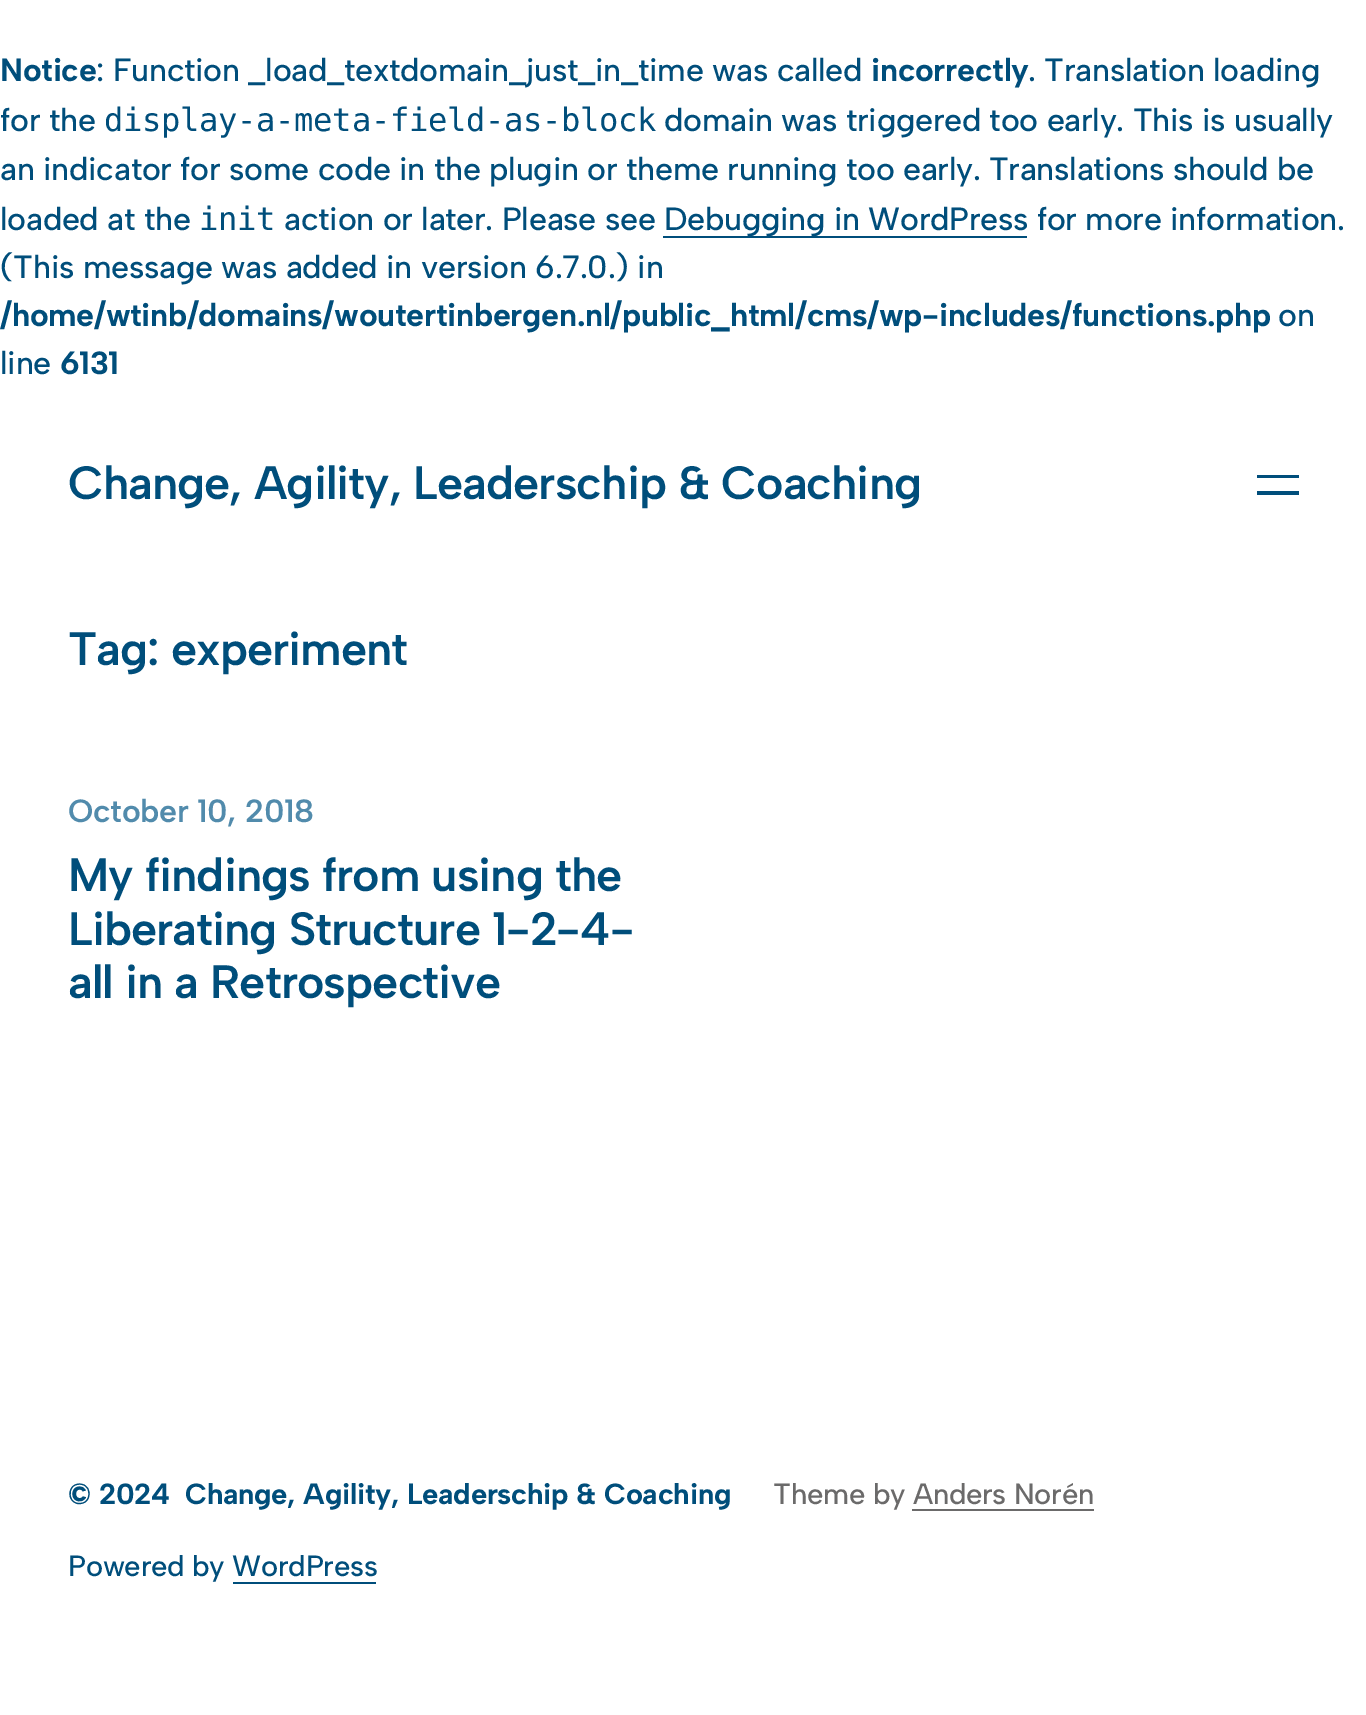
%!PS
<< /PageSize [1366 1715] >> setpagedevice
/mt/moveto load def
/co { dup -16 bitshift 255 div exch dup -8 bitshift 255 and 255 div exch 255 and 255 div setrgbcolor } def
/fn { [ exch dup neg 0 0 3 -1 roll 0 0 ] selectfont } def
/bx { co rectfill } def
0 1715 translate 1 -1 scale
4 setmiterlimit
0 0 1366 1715 16#FFFFFF bx
663 236 364 2 16#004E7B bx
1257 475 42 3 16#004E7B bx
1257 491 42 4 16#004E7B bx
912 1509 182 2 16#6B6A6A bx
233 1582 143 2 16#004E7B bx
/AlbertSans-Bold 32.15 fn
0 81 mt -.32 0 (Notice) ashow
/AlbertSans-Medium 32.15 fn
96 81 mt -.32 0 (: Function _load_textdomain_just_in_time was called) ashow
/AlbertSans-Bold 32.15 fn
871 81 mt -.32 0 (incorrectly) ashow
/AlbertSans-Medium 32.15 fn
1028 81 mt -.32 0 (. Translation loading) ashow
0 131 mt -.32 0 (for the) ashow
/DejaVuSansMono-Regular 32.15 fn
104 131 mt -.32 0 (display-a-meta-field-as-block) ashow
/AlbertSans-Medium 32.15 fn
664 131 mt -.32 0 (domain was triggered too early. This is usually) ashow
0 180 mt -.32 0 (an indicator for some code in the plugin or theme running too early. Translations should be) ashow
0 230 mt -.32 0 (loaded at the) ashow
/DejaVuSansMono-Regular 32.15 fn
199 230 mt -.32 0 (init) ashow
/AlbertSans-Medium 32.15 fn
284 230 mt -.32 0 (action or later. Please see) ashow
664 230 mt -.32 0 (Debugging in WordPress for more information.) ashow
0 278 mt -.32 0 (\(This message was added in version 6.7.0.\) in) ashow
/AlbertSans-Bold 32.15 fn
0 326 mt -.32 0 (/home/wtinb/domains/woutertinbergen.nl/public_html/cms/wp-includes/functions.php) ashow
/AlbertSans-Medium 32.15 fn
1278 326 mt -.32 0 (on) ashow
0 374 mt -.32 0 (line) ashow
/AlbertSans-Bold 32.15 fn
60 374 mt -.32 0 (6131) ashow
/AlbertSans-SemiBold 46.75 fn
68 499 mt -.95 0 (Change, Agility, Leaderschip & Coaching) ashow
68 665 mt -.95 0 (Tag: experiment) ashow
/AlbertSans-SemiBold 32.15 fn
16#518BAC co
68 822 mt -.32 0 (October 10, 2018) ashow
/AlbertSans-SemiBold 46.75 fn
16#004E7B co
68 891 mt -.95 0 (My findings from using the) ashow
68 945 mt -.95 0 (Liberating Structure 1-2-4-) ashow
68 998 mt -.95 0 (all in a Retrospective) ashow
/AlbertSans-Bold 29.2 fn
68 1504 mt -.32 0 (© 2024) ashow
185 1504 mt -.32 0 (Change, Agility, Leaderschip & Coaching) ashow
/AlbertSans-Medium 29.2 fn
16#6B6A6A co
773 1504 mt -.32 0 (Theme by Anders Norén) ashow
16#004E7B co
68 1576 mt -.32 0 (Powered by WordPress) ashow
showpage
